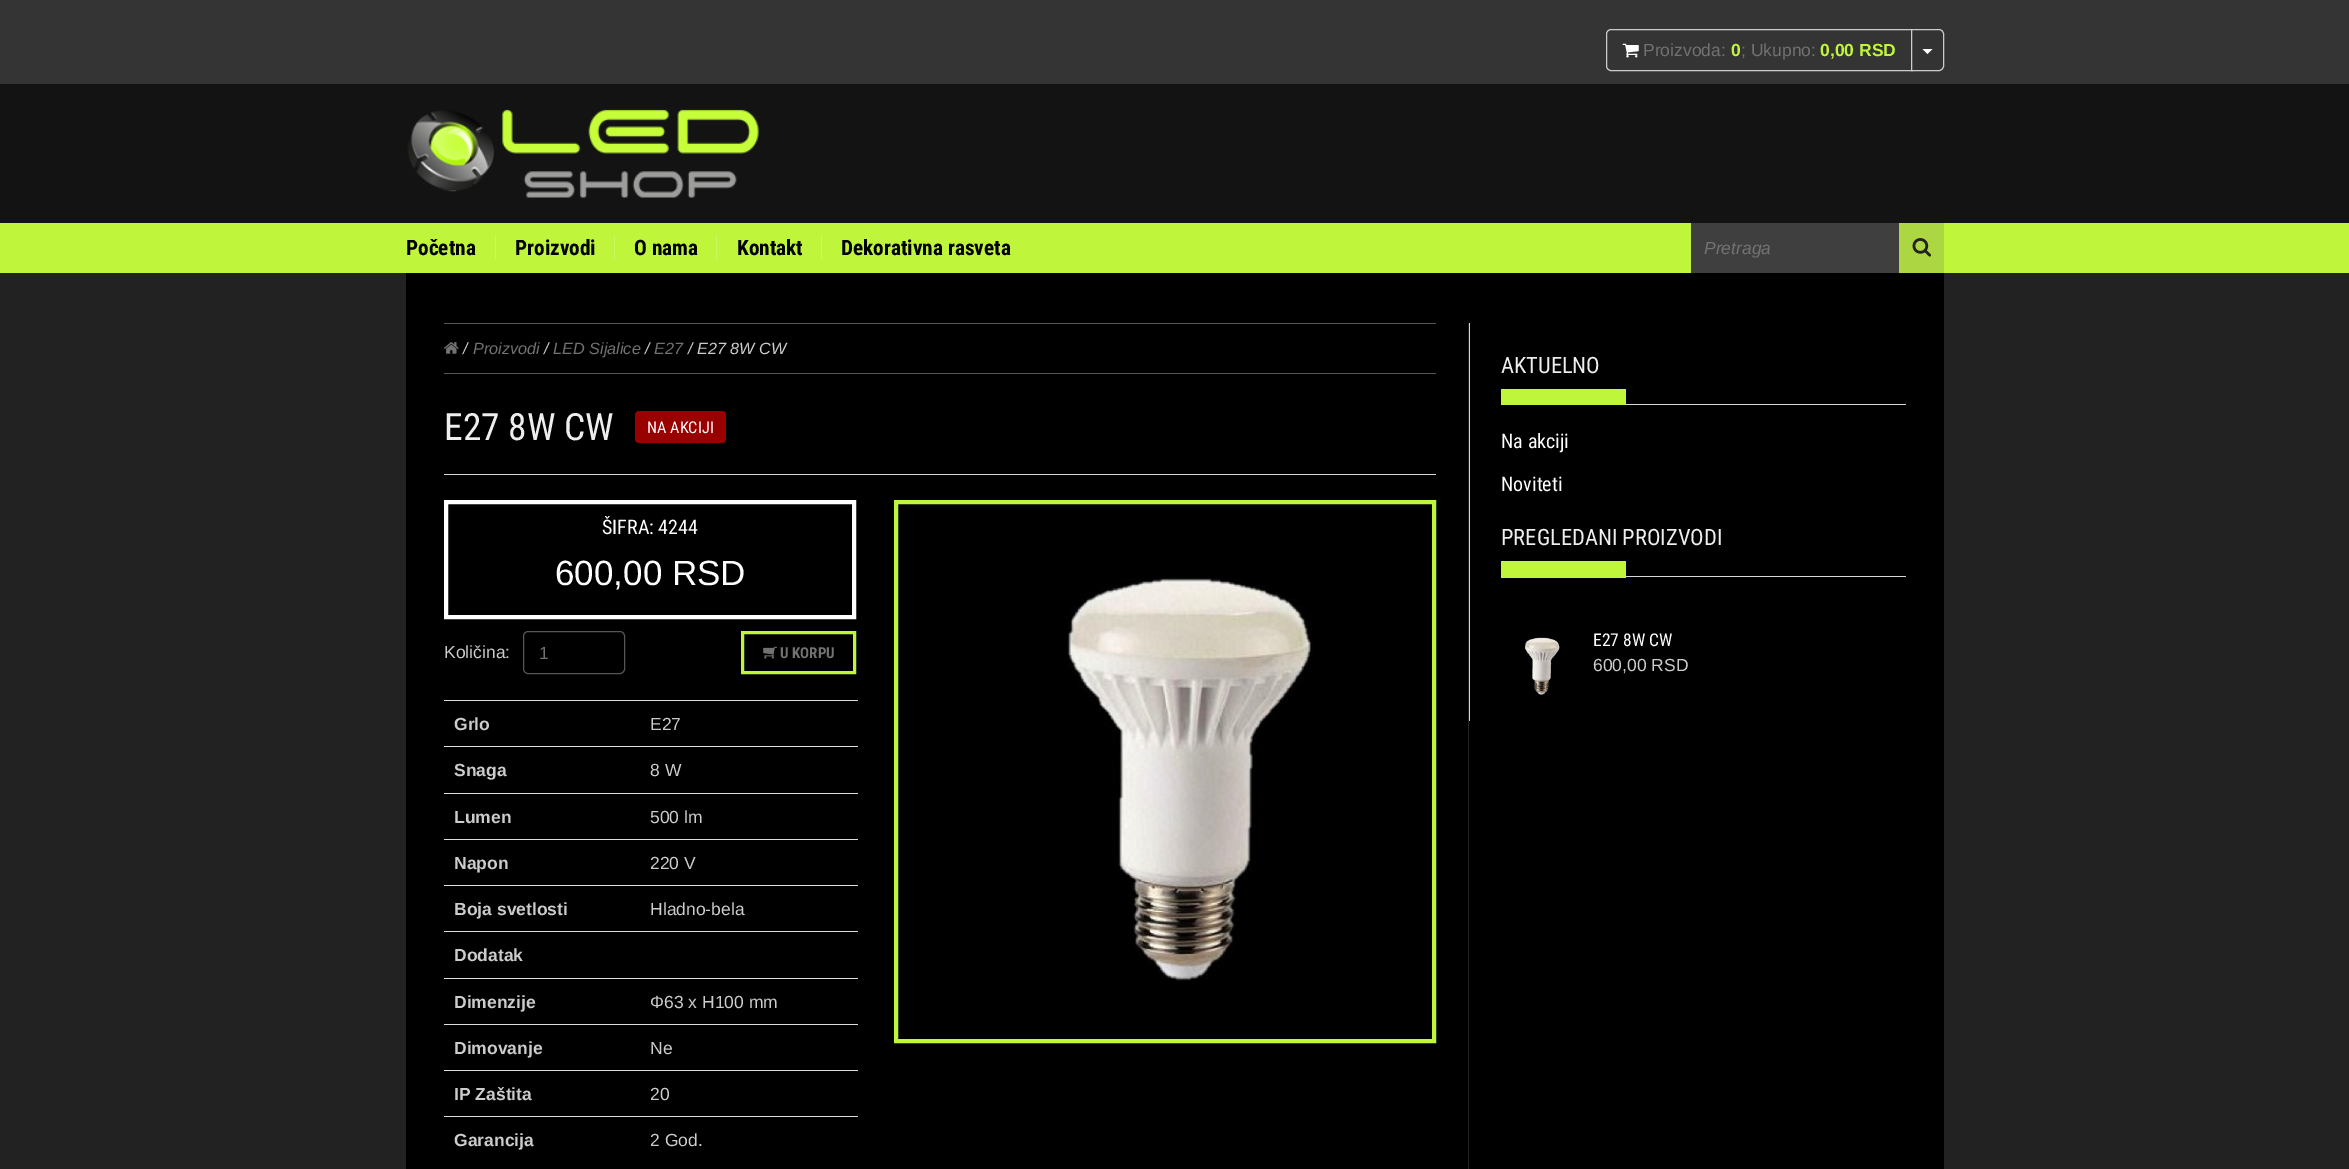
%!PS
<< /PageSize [2349 1169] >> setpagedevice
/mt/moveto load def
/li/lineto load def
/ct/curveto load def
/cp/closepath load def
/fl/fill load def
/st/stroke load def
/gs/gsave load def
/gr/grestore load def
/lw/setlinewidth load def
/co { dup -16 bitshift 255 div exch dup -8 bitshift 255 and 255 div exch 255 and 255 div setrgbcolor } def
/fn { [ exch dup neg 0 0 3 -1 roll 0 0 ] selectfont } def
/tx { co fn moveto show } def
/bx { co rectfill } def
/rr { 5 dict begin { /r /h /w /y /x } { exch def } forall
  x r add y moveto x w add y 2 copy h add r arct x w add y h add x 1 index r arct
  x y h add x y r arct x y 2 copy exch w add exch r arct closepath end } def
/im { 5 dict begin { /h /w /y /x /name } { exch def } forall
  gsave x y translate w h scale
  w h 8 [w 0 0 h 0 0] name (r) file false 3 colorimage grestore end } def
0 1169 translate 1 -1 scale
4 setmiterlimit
0 0 2349 1169 16#222222 bx
0 0 2349 84 16#343434 bx
16#CCCCCC co
1611 29.5 mt 1912.5 29.5 li 1912.5 70.5 li 1611 70.5 li 1608.5 70.5 1606.5 68.5 1606.5 66 ct 1606.5 34 li 1606.5 31.5 1608.5 29.5 1611 29.5 ct cp st
(media/1.raw) 1622 43 17 15 im
16#333333 co
1911.5 29.5 mt 1939 29.5 li 1941.5 29.5 1943.5 31.5 1943.5 34 ct 1943.5 66 li 1943.5 68.5 1941.5 70.5 1939 70.5 ct 1911.5 70.5 li cp gs fl gr
16#CCCCCC co
st
16#FFFFFF co
1922.5 49 mt 1932.5 49 li 1927.5 54 li cp fl
0 84 2349 139 16#131313 bx
(media/2.raw) 407 109 352 89 im
0 223 2349 50 16#BFF53B bx
495 235 1 25 16#CCF762 bx
614 235 1 25 16#CCF762 bx
716 235 1 25 16#CCF762 bx
821 235 1 25 16#CCF762 bx
1691 223 208 50 16#3F3F3F bx
1899 223 45 50 16#ACD642 bx
(media/3.raw) 1912 238 20 19 im
406 273 1538 896 16#000000 bx
1468 323 1 846 16#222222 bx
444 323 992 1 16#555555 bx
444 373 992 1 16#555555 bx
(media/4.raw) 444 342 15 12 im
444 474 992 1 16#D8D8D8 bx
16#990000 co
635 411 91 32 4 rr fl
16#FFFFFF co
4 lw
446 502 408 115 rectstroke
16#555555 co
1 lw
523.5 631.5 101 42 4.5 rr st
16#BFF53B co
3 lw
742.5 632.5 112 40 rectstroke
(media/5.raw) 763 646 14 13 im
444 700 414 1 16#DDDDDD bx
444 746 414 1 16#DDDDDD bx
444 793 414 1 16#DDDDDD bx
444 839 414 1 16#DDDDDD bx
444 885 414 1 16#DDDDDD bx
444 931 414 1 16#DDDDDD bx
444 978 414 1 16#DDDDDD bx
444 1024 414 1 16#DDDDDD bx
444 1070 414 1 16#DDDDDD bx
444 1116 414 1 16#DDDDDD bx
16#BFF53B co
4 lw
896 502 538 539 rectstroke
(media/6.raw) 1067 578 246 403 im
1469 323 1 398 16#D8D8D8 bx
1626 404 280 1 16#D8D8D8 bx
1501 389 125 16 16#BFF53B bx
1626 576 280 1 16#D8D8D8 bx
1501 561 125 17 16#BFF53B bx
(media/7.raw) 1524 637 36 58 im
(Proizvoda:) 1643 56 /LiberationSans-Regular 17.5 16#727272 tx
(0) 1731 56 /LiberationSans-Bold 17.5 16#BFF53B tx
(; Ukupno:) 1741 56 /LiberationSans-Regular 17.5 16#727272 tx
(0,00 RSD) 1820 56 /LiberationSans-Bold 17.5 16#BFF53B tx
(Početna) 406 255 /RobotoCondensed-Bold 21.25 16#000000 tx
(Proizvodi) 515 255 /RobotoCondensed-Bold 21.25 16#000000 tx
(O nama) 634 255 /RobotoCondensed-Bold 21.25 16#000000 tx
(Kontakt) 737 255 /RobotoCondensed-Bold 21.25 16#000000 tx
(Dekorativna rasveta) 841 255 /RobotoCondensed-Bold 21.25 16#000000 tx
(Pretraga) 1704 254 /LiberationSans-Italic 17.5 16#727272 tx
(/) 463 354 /LiberationSans-Italic 16.25 16#CCCCCC tx
(Proizvodi) 473 354 /LiberationSans-Italic 16.25 16#727272 tx
(/) 544 354 /LiberationSans-Italic 16.25 16#CCCCCC tx
(LED Sijalice) 553 354 /LiberationSans-Italic 16.25 16#727272 tx
(/) 645 354 /LiberationSans-Italic 16.25 16#CCCCCC tx
(E27) 654 354 /LiberationSans-Italic 16.25 16#727272 tx
(/ E27 8W CW) 688 354 /LiberationSans-Italic 16.25 16#CCCCCC tx
(E27 8W CW) 444 440 /RobotoCondensed-Regular 37.5 16#EEEEEE tx
(NA AKCIJI) 647 433 /RobotoCondensed-Regular 16.25 16#FFFFFF tx
(ŠIFRA: 4244) 602 534 /RobotoCondensed-Regular 20 16#FFFFFF tx
(600,00 RSD) 555 585 /LiberationSans-Regular 35 16#FFFFFF tx
(Količina:) 444 658 /LiberationSans-Regular 17.5 16#CCCCCC tx
(1) 539 659 /LiberationSans-Regular 17.5 16#727272 tx
(U KORPU) 780 658 /RobotoCondensed-Bold 15 16#727272 tx
(Grlo) 454 730 /LiberationSans-Bold 17.5 16#CCCCCC tx
(E27) 650 730 /LiberationSans-Regular 17.5 16#CCCCCC tx
(Snaga) 454 776 /LiberationSans-Bold 17.5 16#CCCCCC tx
(8 W) 650 776 /LiberationSans-Regular 17.5 16#CCCCCC tx
(Lumen) 454 823 /LiberationSans-Bold 17.5 16#CCCCCC tx
(500 lm) 650 823 /LiberationSans-Regular 17.5 16#CCCCCC tx
(Napon) 454 869 /LiberationSans-Bold 17.5 16#CCCCCC tx
(220 V) 650 869 /LiberationSans-Regular 17.5 16#CCCCCC tx
(Boja svetlosti) 454 915 /LiberationSans-Bold 17.5 16#CCCCCC tx
(Hladno-bela) 650 915 /LiberationSans-Regular 17.5 16#CCCCCC tx
(Dodatak) 454 961 /LiberationSans-Bold 17.5 16#CCCCCC tx
(Dimenzije) 454 1008 /LiberationSans-Bold 17.5 16#CCCCCC tx
(Φ63 x H100 mm) 650 1008 /LiberationSans-Regular 17.5 16#CCCCCC tx
(Dimovanje) 454 1054 /LiberationSans-Bold 17.5 16#CCCCCC tx
(Ne) 650 1054 /LiberationSans-Regular 17.5 16#CCCCCC tx
(IP Zaštita) 454 1100 /LiberationSans-Bold 17.5 16#CCCCCC tx
(20) 650 1100 /LiberationSans-Regular 17.5 16#CCCCCC tx
(Garancija) 454 1146 /LiberationSans-Bold 17.5 16#CCCCCC tx
(2 God.) 650 1146 /LiberationSans-Regular 17.5 16#CCCCCC tx
(AKTUELNO) 1501 373 /RobotoCondensed-Regular 22.5 16#EEEEEE tx
(Na akciji) 1501 448 /RobotoCondensed-Regular 20 16#FFFFFF tx
(Noviteti) 1501 491 /RobotoCondensed-Regular 20 16#FFFFFF tx
(PREGLEDANI PROIZVODI) 1501 545 /RobotoCondensed-Regular 22.5 16#EEEEEE tx
(E27 8W CW) 1593 646 /RobotoCondensed-Regular 17.5 16#FFFFFF tx
(600,00 RSD) 1593 671 /LiberationSans-Regular 17.5 16#CCCCCC tx
showpage
